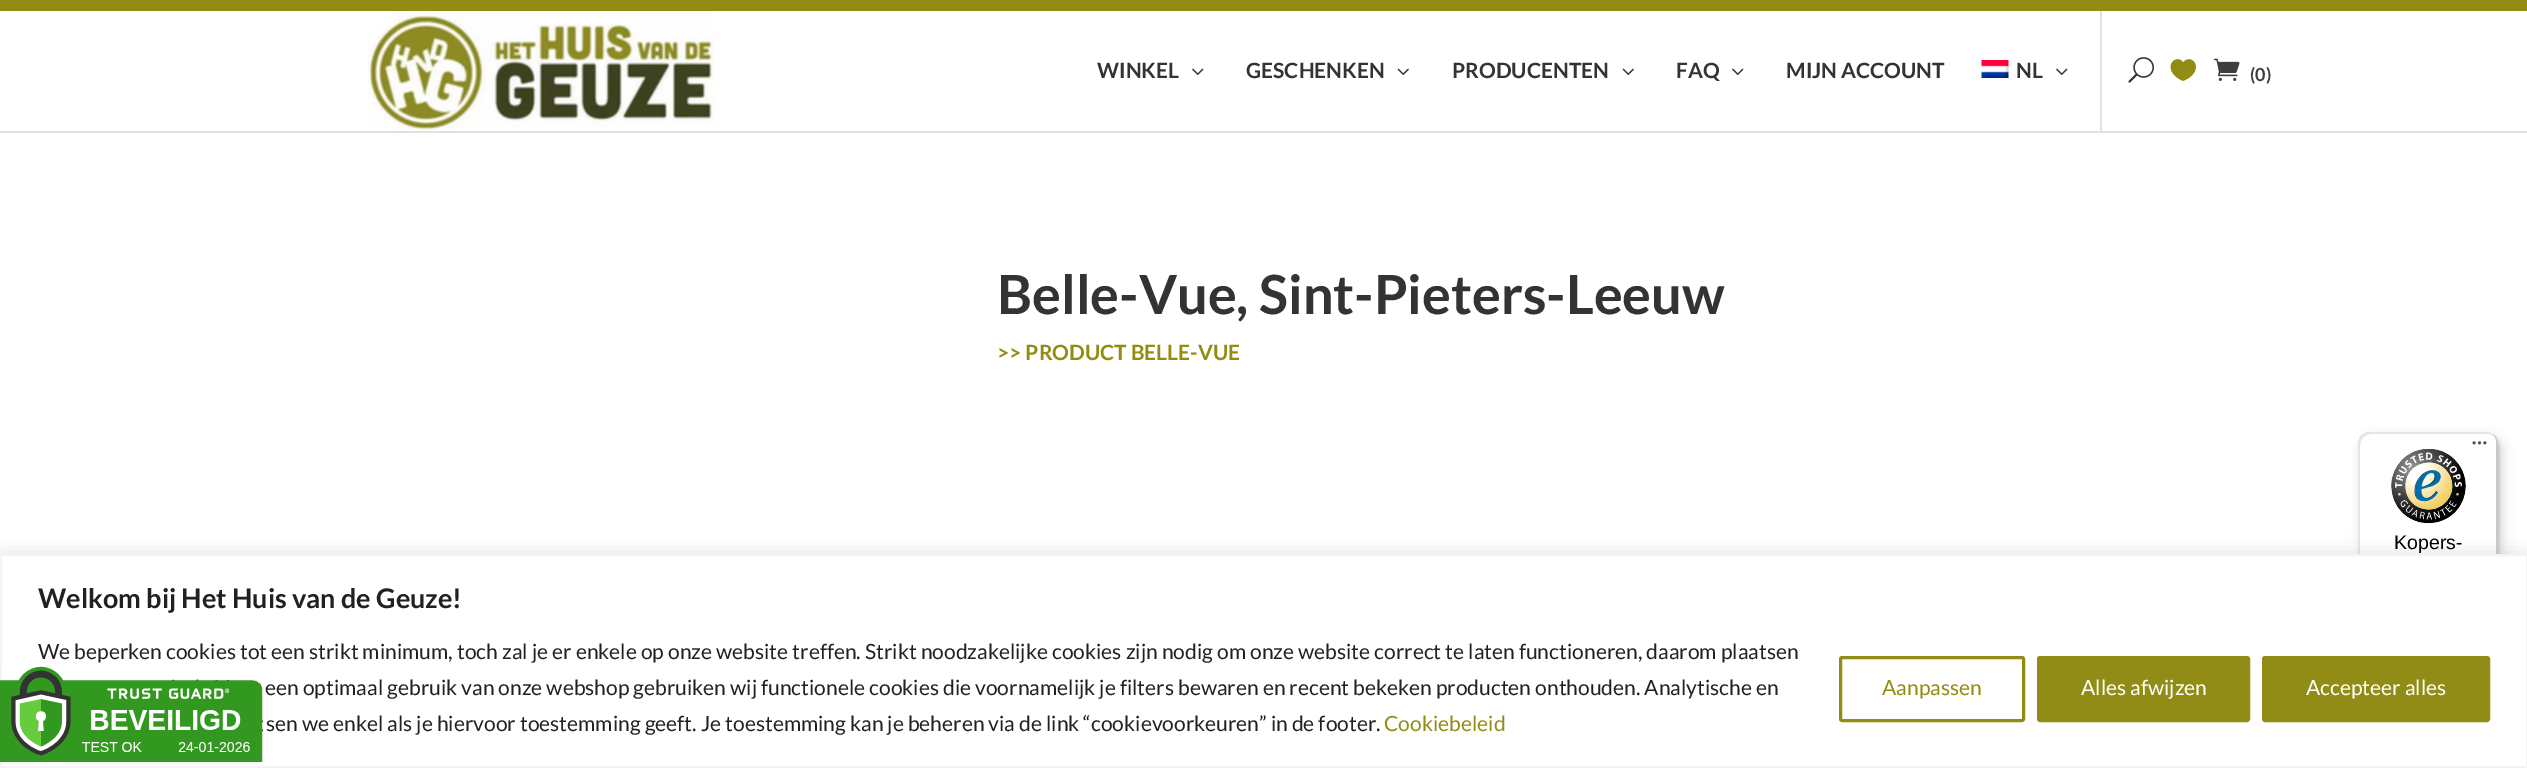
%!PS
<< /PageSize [2527 768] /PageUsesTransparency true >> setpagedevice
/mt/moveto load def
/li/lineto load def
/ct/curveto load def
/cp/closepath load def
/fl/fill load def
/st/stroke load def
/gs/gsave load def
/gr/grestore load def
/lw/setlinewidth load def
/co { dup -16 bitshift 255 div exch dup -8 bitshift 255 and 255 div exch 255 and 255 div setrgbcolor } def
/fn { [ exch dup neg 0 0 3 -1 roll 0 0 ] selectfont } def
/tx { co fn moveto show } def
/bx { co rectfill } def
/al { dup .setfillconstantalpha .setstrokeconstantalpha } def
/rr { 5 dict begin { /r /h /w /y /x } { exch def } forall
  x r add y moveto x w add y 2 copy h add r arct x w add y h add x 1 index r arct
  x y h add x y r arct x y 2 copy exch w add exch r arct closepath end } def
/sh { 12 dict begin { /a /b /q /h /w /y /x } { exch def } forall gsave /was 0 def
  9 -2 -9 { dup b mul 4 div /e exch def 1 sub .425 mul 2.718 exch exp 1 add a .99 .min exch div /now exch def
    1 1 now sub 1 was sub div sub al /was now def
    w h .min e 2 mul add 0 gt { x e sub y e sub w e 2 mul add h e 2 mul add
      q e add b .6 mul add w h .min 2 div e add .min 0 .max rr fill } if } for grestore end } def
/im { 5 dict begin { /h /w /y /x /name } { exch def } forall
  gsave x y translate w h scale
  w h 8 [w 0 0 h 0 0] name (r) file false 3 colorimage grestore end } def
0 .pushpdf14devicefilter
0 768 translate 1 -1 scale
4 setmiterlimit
0 0 2527 768 16#FFFFFF bx
0 131 2527 2 16#E1E1E1 bx
0 0 2527 11 16#928C12 bx
(media/1.raw) 367 13 348 117 im
(media/2.raw) 1192 68 12 7 im
(media/3.raw) 1397 68 12 7 im
(media/3.raw) 1622 68 12 7 im
(media/2.raw) 1732 68 12 7 im
(media/4.raw) 1981 60 28 18 im
(media/2.raw) 2056 68 12 7 im
2100 11 2 120 16#E1E1E1 bx
(media/5.raw) 2128 57 26 26 im
(media/6.raw) 2170 59 26 22 im
(media/7.raw) 2214 58 26 23 im
16#000000 co
2363 437 139 255 12 6 .15 sh
2360 434 139 255 12 1.5 .15 sh
16#FFFFFF co
2358 432 140 255 12 rr fl
0.1 al
16#000000 co
2372 434 mt 2487 434 li 2491 434 2495 436 2497 439 ct 2495 435 2491 432 2486 432 ct 2370 432 li 2363 432 2358 437 2358 444 ct 2358 675 li 2358 680 2361 684 2365 686 ct 2362 684 2360 680 2360 676 ct 2360 446 li 2360 439 2365 434 2372 434 ct cp fl
0.2 al
2363 684 mt 2365 686 2367 687 2370 687 ct 2486 687 li 2493 687 2498 682 2498 675 ct 2498 444 li 2498 440 2496 437 2493 434 ct 2495 437 2496 439 2496 442 ct 2496 674 li 2496 680 2491 686 2484 686 ct 2368 686 li 2366 686 2364 685 2363 684 ct cp fl
16#323232 co
2362 684 mt 2364 686 2367 687 2370 687 ct 2486 687 li 2493 687 2498 682 2498 675 ct 2498 444 li 2498 440 2496 437 2494 435 ct 2496 437 2497 440 2497 443 ct 2497 674 li 2497 681 2491 686 2485 686 ct 2369 686 li 2366 686 2364 685 2362 684 ct cp fl
0.3 al
16#FFFFFF co
2361 683 mt 2363 685 2366 687 2370 687 ct 2486 687 li 2493 687 2498 682 2498 675 ct 2498 444 li 2498 439 2496 436 2492 434 ct 2495 436 2497 439 2497 443 ct 2497 674 li 2497 681 2491 686 2485 686 ct 2369 686 li 2366 686 2363 685 2361 683 ct cp fl
1 al
16#ACABAB co
0 552 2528 215 0 7.5 .3 sh
16#FFFFFF co
1 555 mt 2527 555 li 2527 767 li 1 767 li cp gs fl gr
16#F4F4F4 co
2 lw
st
(media/8.raw) 0 666 263 96 im
(media/9.raw) 2472 441 15 4 im
(media/10.raw) 2391 449 75 75 im
16#918C15 co
3 lw
1840.5 657.5 183 63 1.5 rr st
2038.5 657.5 210 63 1.5 rr gs fl gr
st
2263.5 657.5 225 63 1.5 rr gs fl gr
st
(WINKEL) 1097 78 /Lato-Bold 21 16#333333 tx
(GESCHENKEN) 1246 78 /Lato-Bold 21 16#333333 tx
(PRODUCENTEN) 1452 78 /Lato-Bold 21 16#333333 tx
(FAQ) 1676 78 /Lato-Bold 21 16#333333 tx
(MIJN ACCOUNT) 1786 78 /Lato-Bold 21 16#333333 tx
(NL) 2016 78 /Lato-Bold 21 16#333333 tx
(\(0\)) 2250 81 /Lato-Bold 18 16#3F3F3F tx
(Belle-Vue, Sint-Pieters-Leeuw) 997 314 /Lato-Bold 54 16#333333 tx
(>> PRODUCT BELLE-VUE) 997 360 /Lato-Bold 21 16#928C12 tx
(Kopers-) 2394 549 /LiberationSans-Regular 19.5 16#000000 tx
(Welkom bij Het Huis van de Geuze!) 38 608 /Lato-Bold 27 16#212121 tx
(We beperken cookies tot een strikt minimum, toch zal je er enkele op onze website treffen. Strikt noodzakelijke cookies zijn nodig om onze website correct te laten functioneren, daarom plaatsen) 38 659 /Lato-Regular 21 16#212121 tx
(een optimaal gebruik van onze webshop gebruiken wij functionele cookies die voornamelijk je filters bewaren en recent bekeken producten onthouden. Analytische en) 265 695 /Lato-Regular 21 16#212121 tx
(sen we enkel als je hiervoor toestemming geeft. Je toestemming kan je beheren via de link “cookievoorkeuren” in de footer.) 266 731 /Lato-Regular 21 16#212121 tx
(Cookiebeleid) 1384 731 /Lato-Regular 21 16#928C12 tx
(Aanpassen) 1882 695 /Lato-Regular 21 16#928C12 tx
(Alles afwijzen) 2081 695 /Lato-Regular 21 16#FFFFFF tx
(Accepteer alles) 2306 695 /Lato-Regular 21 16#FFFFFF tx
.poppdf14devicefilter showpage
